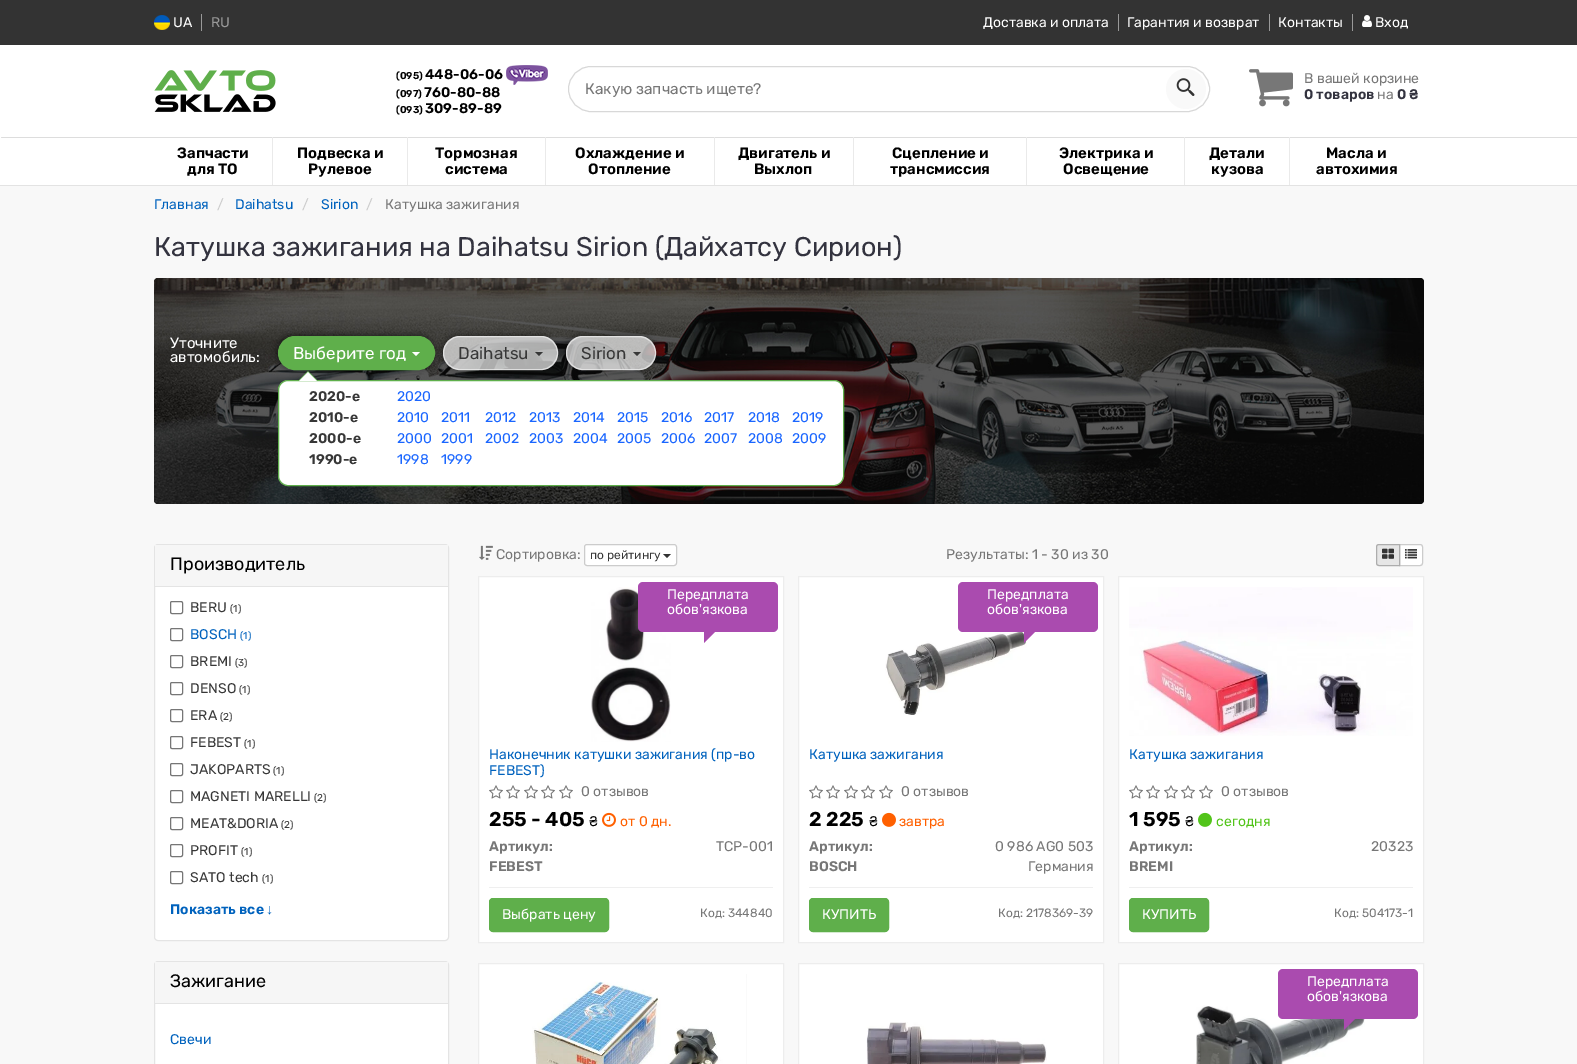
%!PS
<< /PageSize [1577 1064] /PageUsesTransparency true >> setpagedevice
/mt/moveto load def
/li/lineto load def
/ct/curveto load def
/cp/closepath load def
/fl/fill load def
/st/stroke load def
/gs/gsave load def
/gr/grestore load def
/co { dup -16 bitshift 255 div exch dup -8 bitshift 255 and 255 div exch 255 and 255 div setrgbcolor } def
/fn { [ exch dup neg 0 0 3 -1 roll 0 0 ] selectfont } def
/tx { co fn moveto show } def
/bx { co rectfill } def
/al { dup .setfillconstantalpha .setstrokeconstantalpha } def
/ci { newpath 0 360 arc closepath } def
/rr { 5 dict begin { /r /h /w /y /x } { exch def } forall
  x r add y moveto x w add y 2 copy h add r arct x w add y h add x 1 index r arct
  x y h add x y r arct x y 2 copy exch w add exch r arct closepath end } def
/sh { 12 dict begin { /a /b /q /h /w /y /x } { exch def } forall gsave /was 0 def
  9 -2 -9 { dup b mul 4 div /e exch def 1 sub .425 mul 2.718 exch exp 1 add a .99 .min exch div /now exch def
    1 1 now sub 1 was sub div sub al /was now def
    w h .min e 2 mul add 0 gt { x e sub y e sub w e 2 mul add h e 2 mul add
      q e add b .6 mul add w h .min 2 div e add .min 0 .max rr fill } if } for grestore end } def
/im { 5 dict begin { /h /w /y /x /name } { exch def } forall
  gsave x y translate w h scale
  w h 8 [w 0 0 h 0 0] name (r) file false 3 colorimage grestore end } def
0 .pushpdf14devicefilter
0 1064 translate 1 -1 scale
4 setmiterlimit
0 0 1577 1064 16#FFFFFF bx
0 0 1577 45 16#333333 bx
(media/1.raw) 154 15 16 15 im
201 14 1 17 16#999999 bx
1118 14 1 17 16#999999 bx
1269 14 1 17 16#999999 bx
1352 14 1 17 16#999999 bx
(media/2.raw) 1362 15 10 12 im
gs
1 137 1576 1 rectclip
16#000000 co
1 46 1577 92 0 .5 .15 sh
gr
(media/3.raw) 154 70 122 42 im
(media/4.raw) 506 65 42 20 im
16#D8D8D8 co
568.5 66.5 641 45 22.5 rr st
16#F9F9F9 co
1186 89 20 ci fl
(media/5.raw) 1176 78 19 18 im
(media/6.raw) 1249 69 44 38 im
0 185 1577 1 16#E3E3E3 bx
272 137 1 48 16#EAEAEA bx
407 137 1 48 16#EAEAEA bx
545 137 1 48 16#EAEAEA bx
714 137 1 48 16#EAEAEA bx
853 137 1 48 16#EAEAEA bx
1026 137 1 48 16#EAEAEA bx
1184 137 1 48 16#EAEAEA bx
1289 137 1 48 16#EAEAEA bx
0 186 1577 878 16#F8F8F8 bx
(media/7.raw) 154 278 1270 226 im
16#000000 co
277 335 157 34 17 3 .5 sh
16#5FAF4B co
278.5 336.5 156 33 16.5 rr gs fl gr
st
16#FFFFFF co
412 352 mt 420 352 li 416 356 li cp fl
278.5 380.5 565 105 9.5 rr gs fl gr
16#5FAF4B co
st
318 381 mt 298 381 li 308 371 li cp fl
16#FFFFFF co
317 381 mt 299 381 li 308 372 li cp fl
gs
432 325 mt 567 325 li 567 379 li 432 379 li cp 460 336 mt 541 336 li 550.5 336 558 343.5 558 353 ct 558 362.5 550.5 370 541 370 ct 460 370 li 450.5 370 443 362.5 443 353 ct 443 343.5 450.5 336 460 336 ct cp eoclip newpath
16#000000 co
442 335 115 34 17 3 .35 sh
gr
0.7 al
16#F2F2F2 co
443 336 115 34 17 rr fl
443.5 336.5 114 33 16.5 rr st
16#000000 co
535 352 mt 543 352 li 539 356 li cp fl
gs
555 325 mt 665 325 li 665 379 li 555 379 li cp 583 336 mt 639 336 li 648.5 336 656 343.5 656 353 ct 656 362.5 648.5 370 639 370 ct 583 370 li 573.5 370 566 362.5 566 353 ct 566 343.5 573.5 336 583 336 ct cp eoclip newpath
1 al
565 335 90 34 17 3 .35 sh
gr
16#F2F2F2 co
566 336 90 34 17 rr fl
566.5 336.5 89 33 16.5 rr st
16#000000 co
633 352 mt 641 352 li 637 356 li cp fl
1 al
16#FFFFFF co
154.5 544.5 294 396 3.5 rr gs fl gr
16#E4E4E4 co
st
155 545 293 41 16#F6F6F6 bx
155 586 293 1 16#E4E4E4 bx
16#767676 co
170.5 601.5 12 12 1.5 rr st
170.5 628.5 12 12 1.5 rr st
170.5 655.5 12 12 1.5 rr st
170.5 682.5 12 12 1.5 rr st
170.5 709.5 12 12 1.5 rr st
170.5 736.5 12 12 1.5 rr st
170.5 763.5 12 12 1.5 rr st
170.5 790.5 12 12 1.5 rr st
170.5 817.5 12 12 1.5 rr st
170.5 844.5 12 12 1.5 rr st
170.5 871.5 12 12 1.5 rr st
16#FFFFFF co
154.5 961.5 294 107 3.5 rr gs fl gr
16#E4E4E4 co
st
155 962 293 41 16#F6F6F6 bx
155 1003 293 1 16#E4E4E4 bx
(media/8.raw) 479 545 14 15 im
16#FFFFFF co
584.5 544.5 92 21 2.5 rr gs fl gr
16#CCCCCC co
st
16#333333 co
663 554 mt 671 554 li 667 558 li cp fl
16#FFFFFF co
1399.5 544.5 mt 1420 544.5 li 1421.5 544.5 1422.5 545.5 1422.5 547 ct 1422.5 563 li 1422.5 564.5 1421.5 565.5 1420 565.5 ct 1399.5 565.5 li cp gs fl gr
16#CCCCCC co
st
16#E6E6E6 co
1379 544.5 mt 1399.5 544.5 li 1399.5 565.5 li 1379 565.5 li 1377.5 565.5 1376.5 564.5 1376.5 563 ct 1376.5 547 li 1376.5 545.5 1377.5 544.5 1379 544.5 ct cp gs fl gr
16#ADADAD co
st
(media/9.raw) 1382 548 12 11 im
(media/10.raw) 1405 549 12 10 im
16#FFFFFF co
478.5 576.5 mt 783.5 576.5 li 783.5 942.5 li 478.5 942.5 li cp gs fl gr
16#EDEDED co
st
(media/11.raw) 591 587 80 155 im
16#AA4BAF co
638 582 140 50 5 rr fl
704 632 mt 715 632 li 704 643 li cp fl
(media/12.raw) 489 785 14 14 im
(media/12.raw) 506 785 14 14 im
(media/12.raw) 524 785 14 14 im
(media/12.raw) 541 785 14 14 im
(media/12.raw) 559 785 14 14 im
(media/13.raw) 602 812 14 15 im
489 887 284 1 16#EFEFEF bx
16#5FAF4B co
489.5 898.5 119 33 3.5 rr gs fl gr
st
16#FFFFFF co
798.5 576.5 mt 1103.5 576.5 li 1103.5 942.5 li 798.5 942.5 li cp gs fl gr
16#EDEDED co
st
(media/14.raw) 885 631 142 84 im
16#AA4BAF co
958 582 140 50 5 rr fl
1024 632 mt 1035 632 li 1024 643 li cp fl
(media/12.raw) 809 785 14 14 im
(media/12.raw) 826 785 14 14 im
(media/12.raw) 844 785 14 14 im
(media/12.raw) 861 785 14 14 im
(media/12.raw) 879 785 14 14 im
(media/15.raw) 882 812 14 15 im
809 887 284 1 16#EFEFEF bx
16#5FAF4B co
809.5 898.5 79 33 3.5 rr gs fl gr
st
16#FFFFFF co
1118.5 576.5 mt 1423.5 576.5 li 1423.5 942.5 li 1118.5 942.5 li cp gs fl gr
16#EDEDED co
st
(media/16.raw) 1129 587 284 149 im
(media/12.raw) 1129 785 14 14 im
(media/12.raw) 1146 785 14 14 im
(media/12.raw) 1164 785 14 14 im
(media/12.raw) 1181 785 14 14 im
(media/12.raw) 1199 785 14 14 im
(media/17.raw) 1198 812 14 15 im
1129 887 284 1 16#EFEFEF bx
16#5FAF4B co
1129.5 898.5 79 33 3.5 rr gs fl gr
st
16#FFFFFF co
478.5 963.5 mt 783.5 963.5 li 783.5 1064.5 li 478.5 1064.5 li cp gs fl gr
16#EDEDED co
st
(media/18.raw) 532 974 215 90 im
16#FFFFFF co
798.5 963.5 mt 1103.5 963.5 li 1103.5 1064.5 li 798.5 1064.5 li cp gs fl gr
16#EDEDED co
st
(media/19.raw) 866 1022 181 42 im
16#FFFFFF co
1118.5 963.5 mt 1423.5 963.5 li 1423.5 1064.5 li 1118.5 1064.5 li cp gs fl gr
16#EDEDED co
st
(media/20.raw) 1196 1005 169 59 im
16#AA4BAF co
1278 969 140 50 5 rr fl
1344 1019 mt 1355 1019 li 1344 1030 li cp fl
(UA) 173 27 /Rubik-Regular 14 16#FFFFFF tx
(RU) 211 27 /Rubik-Regular 14 16#999999 tx
(Доставка и оплата) 983 27 /Rubik-Regular 14 16#FFFFFF tx
(Гарантия и возврат) 1127 27 /Rubik-Regular 14 16#FFFFFF tx
(Контакты) 1278 27 /Rubik-Regular 14 16#FFFFFF tx
(Вход) 1375 27 /Rubik-Regular 14 16#FFFFFF tx
(\(095\)) 396 79 /Rubik-SemiBold 10 16#000000 tx
(448-06-06) 425 79 /Rubik-SemiBold 14 16#000000 tx
(\(097\)) 396 97 /Rubik-SemiBold 10 16#000000 tx
(760-80-88) 424 97 /Rubik-SemiBold 14 16#000000 tx
(\(093\)) 396 113 /Rubik-SemiBold 10 16#000000 tx
(309-89-89) 425 113 /Rubik-SemiBold 14 16#000000 tx
(Какую запчасть ищете?) 585 94 /Rubik-Regular 15.4 16#777777 tx
(В вашей корзине) 1304 83 /Rubik-Regular 14 16#777777 tx
(0 товаров) 1304 99 /Rubik-SemiBold 14 16#33333F tx
(на) 1377 99 /Rubik-Regular 14 16#777777 tx
(0 ₴) 1397 99 /Rubik-SemiBold 14 16#33333F tx
(Запчасти) 177 158 /Rubik-SemiBold 15 16#000000 tx
(для ТО) 187 174 /Rubik-SemiBold 15 16#000000 tx
(Подвеска и) 297 158 /Rubik-SemiBold 15 16#000000 tx
(Рулевое) 308 174 /Rubik-SemiBold 15 16#000000 tx
(Тормозная) 435 158 /Rubik-SemiBold 15 16#000000 tx
(система) 445 174 /Rubik-SemiBold 15 16#000000 tx
(Охлаждение и) 575 158 /Rubik-SemiBold 15 16#000000 tx
(Отопление) 588 174 /Rubik-SemiBold 15 16#000000 tx
(Двигатель и) 738 158 /Rubik-SemiBold 15 16#000000 tx
(Выхлоп) 754 174 /Rubik-SemiBold 15 16#000000 tx
(Сцепление и) 892 158 /Rubik-SemiBold 15 16#000000 tx
(трансмиссия) 890 174 /Rubik-SemiBold 15 16#000000 tx
(Электрика и) 1059 158 /Rubik-SemiBold 15 16#000000 tx
(Освещение) 1063 174 /Rubik-SemiBold 15 16#000000 tx
(Детали) 1209 158 /Rubik-SemiBold 15 16#000000 tx
(кузова) 1211 174 /Rubik-SemiBold 15 16#000000 tx
(Масла и) 1326 158 /Rubik-SemiBold 15 16#000000 tx
(автохимия) 1316 174 /Rubik-SemiBold 15 16#000000 tx
(Главная) 154 209 /Rubik-Regular 14 16#0062BD tx
(/) 217 209 /Rubik-Regular 14 16#CCCCCC tx
(Daihatsu) 235 209 /Rubik-Regular 14 16#0062BD tx
(/) 302 209 /Rubik-Regular 14 16#CCCCCC tx
(Sirion) 321 209 /Rubik-Regular 14 16#0062BD tx
(/) 366 209 /Rubik-Regular 14 16#CCCCCC tx
(Катушка зажигания) 385 209 /Rubik-Regular 14 16#777777 tx
(Катушка зажигания на Daihatsu Sirion \(Дайхатсу Сирион\)) 154 256 /Rubik-Regular 27 16#33333F tx
(Уточните) 170 348 /Rubik-Regular 15 16#FFFFFF tx
(автомобиль:) 170 362 /Rubik-Regular 15 16#FFFFFF tx
(Выберите год) 293 359 /Rubik-Regular 17 16#FFFFFF tx
(2020-е) 309 401 /Rubik-SemiBold 14 16#373737 tx
(2020) 397 401 /Rubik-Regular 14 16#1A66FF tx
(2010-е) 309 422 /Rubik-SemiBold 14 16#373737 tx
(2010) 397 422 /Rubik-Regular 14 16#1A66FF tx
(2011) 441 422 /Rubik-Regular 14 16#1A66FF tx
(2012) 485 422 /Rubik-Regular 14 16#1A66FF tx
(2013) 529 422 /Rubik-Regular 14 16#1A66FF tx
(2014) 573 422 /Rubik-Regular 14 16#1A66FF tx
(2015) 617 422 /Rubik-Regular 14 16#1A66FF tx
(2016) 661 422 /Rubik-Regular 14 16#1A66FF tx
(2017) 704 422 /Rubik-Regular 14 16#1A66FF tx
(2018) 748 422 /Rubik-Regular 14 16#1A66FF tx
(2019) 792 422 /Rubik-Regular 14 16#1A66FF tx
(2000-е) 309 443 /Rubik-SemiBold 14 16#373737 tx
(2000) 397 443 /Rubik-Regular 14 16#1A66FF tx
(2001) 441 443 /Rubik-Regular 14 16#1A66FF tx
(2002) 485 443 /Rubik-Regular 14 16#1A66FF tx
(2003) 529 443 /Rubik-Regular 14 16#1A66FF tx
(2004) 573 443 /Rubik-Regular 14 16#1A66FF tx
(2005) 617 443 /Rubik-Regular 14 16#1A66FF tx
(2006) 661 443 /Rubik-Regular 14 16#1A66FF tx
(2007) 704 443 /Rubik-Regular 14 16#1A66FF tx
(2008) 748 443 /Rubik-Regular 14 16#1A66FF tx
(2009) 792 443 /Rubik-Regular 14 16#1A66FF tx
(1990-е) 309 464 /Rubik-SemiBold 14 16#373737 tx
(1998) 397 464 /Rubik-Regular 14 16#1A66FF tx
(1999) 441 464 /Rubik-Regular 14 16#1A66FF tx
(Daihatsu) 458 359 /Rubik-Regular 17 16#373737 tx
(Sirion) 581 359 /Rubik-Regular 17 16#373737 tx
(Производитель) 170 570 /Rubik-Regular 18 16#000000 tx
(BERU) 190 612 /Rubik-Regular 14 16#373737 tx
(\(1\)) 230 612 /Rubik-Regular 10 16#373737 tx
(BOSCH) 190 639 /Rubik-Regular 14 16#0062BD tx
(\(1\)) 240 639 /Rubik-Regular 10 16#0062BD tx
(BREMI) 190 666 /Rubik-Regular 14 16#373737 tx
(\(3\)) 235 666 /Rubik-Regular 10 16#373737 tx
(DENSO) 190 693 /Rubik-Regular 14 16#373737 tx
(\(1\)) 239 693 /Rubik-Regular 10 16#373737 tx
(ERA) 190 720 /Rubik-Regular 14 16#373737 tx
(\(2\)) 220 720 /Rubik-Regular 10 16#373737 tx
(FEBEST) 190 747 /Rubik-Regular 14 16#373737 tx
(\(1\)) 244 747 /Rubik-Regular 10 16#373737 tx
(JAKOPARTS) 190 774 /Rubik-Regular 14 16#373737 tx
(\(1\)) 273 774 /Rubik-Regular 10 16#373737 tx
(MAGNETI MARELLI) 190 801 /Rubik-Regular 14 16#373737 tx
(\(2\)) 314 801 /Rubik-Regular 10 16#373737 tx
(MEAT&DORIA) 190 828 /Rubik-Regular 14 16#373737 tx
(\(2\)) 281 828 /Rubik-Regular 10 16#373737 tx
(PROFIT) 190 855 /Rubik-Regular 14 16#373737 tx
(\(1\)) 241 855 /Rubik-Regular 10 16#373737 tx
(SATO tech) 190 882 /Rubik-Regular 14 16#373737 tx
(\(1\)) 262 882 /Rubik-Regular 10 16#373737 tx
(Показать все) 170 914 /Rubik-SemiBold 14 16#0062BD tx
(↓) 266 914 /LiberationSans-Bold 14 16#0062BD tx
(Зажигание) 170 987 /Rubik-Regular 18 16#000000 tx
(Свечи) 170 1044 /Rubik-Regular 14 16#0062BD tx
(Сортировка:) 496 559 /Rubik-Regular 14 16#777777 tx
(по рейтингу) 590 559 /Rubik-Regular 12 16#373737 tx
(Результаты: 1 - 30 из 30) 946 559 /Rubik-Regular 14 16#777777 tx
(Передплата) 667 599 /Rubik-Regular 14 16#FFFFFF tx
(обов'язкова) 667 614 /Rubik-Regular 14 16#FFFFFF tx
(Наконечник катушки зажигания \(пр-во) 489 759 /Rubik-Regular 14 16#0062BD tx
(FEBEST\)) 489 775 /Rubik-Regular 14 16#0062BD tx
(0 отзывов) 581 796 /Rubik-Regular 14 16#777777 tx
(255 - 405) 489 826 /Rubik-SemiBold 20 16#000000 tx
(₴) 589 826 /Rubik-Regular 14 16#000000 tx
(от 0 дн.) 620 826 /Rubik-Regular 14 16#FF6000 tx
(Артикул:) 489 851 /Rubik-SemiBold 14 16#777777 tx
(TCP-001) 716 851 /Rubik-Regular 14 16#777777 tx
(FEBEST) 489 871 /Rubik-SemiBold 14 16#777777 tx
(Выбрать цену) 502 919 /Rubik-Regular 14 16#FFFFFF tx
(Код: 344840) 700 917 /Rubik-Regular 12 16#777777 tx
(Передплата) 987 599 /Rubik-Regular 14 16#FFFFFF tx
(обов'язкова) 987 614 /Rubik-Regular 14 16#FFFFFF tx
(Катушка зажигания) 809 759 /Rubik-Regular 14 16#0062BD tx
(0 отзывов) 901 796 /Rubik-Regular 14 16#777777 tx
(2 225) 809 826 /Rubik-SemiBold 20 16#000000 tx
(₴) 869 826 /Rubik-Regular 14 16#000000 tx
(завтра) 899 826 /Rubik-Regular 14 16#FF6000 tx
(Артикул:) 809 851 /Rubik-SemiBold 14 16#777777 tx
(0 986 AG0 503) 995 851 /Rubik-Regular 14 16#777777 tx
(BOSCH) 809 871 /Rubik-SemiBold 14 16#777777 tx
(Германия) 1028 871 /Rubik-Regular 14 16#777777 tx
(КУПИТЬ) 822 919 /Rubik-Regular 14 16#FFFFFF tx
(Код: 2178369-39) 998 917 /Rubik-Regular 12 16#777777 tx
(Катушка зажигания) 1129 759 /Rubik-Regular 14 16#0062BD tx
(0 отзывов) 1221 796 /Rubik-Regular 14 16#777777 tx
(1 595) 1129 826 /Rubik-SemiBold 20 16#000000 tx
(₴) 1185 826 /Rubik-Regular 14 16#000000 tx
(сегодня) 1216 826 /Rubik-Regular 14 16#52C41A tx
(Артикул:) 1129 851 /Rubik-SemiBold 14 16#777777 tx
(20323) 1371 851 /Rubik-Regular 14 16#777777 tx
(BREMI) 1129 871 /Rubik-SemiBold 14 16#777777 tx
(КУПИТЬ) 1142 919 /Rubik-Regular 14 16#FFFFFF tx
(Код: 504173-1) 1334 917 /Rubik-Regular 12 16#777777 tx
(Передплата) 1307 986 /Rubik-Regular 14 16#FFFFFF tx
(обов'язкова) 1307 1001 /Rubik-Regular 14 16#FFFFFF tx
.poppdf14devicefilter showpage
